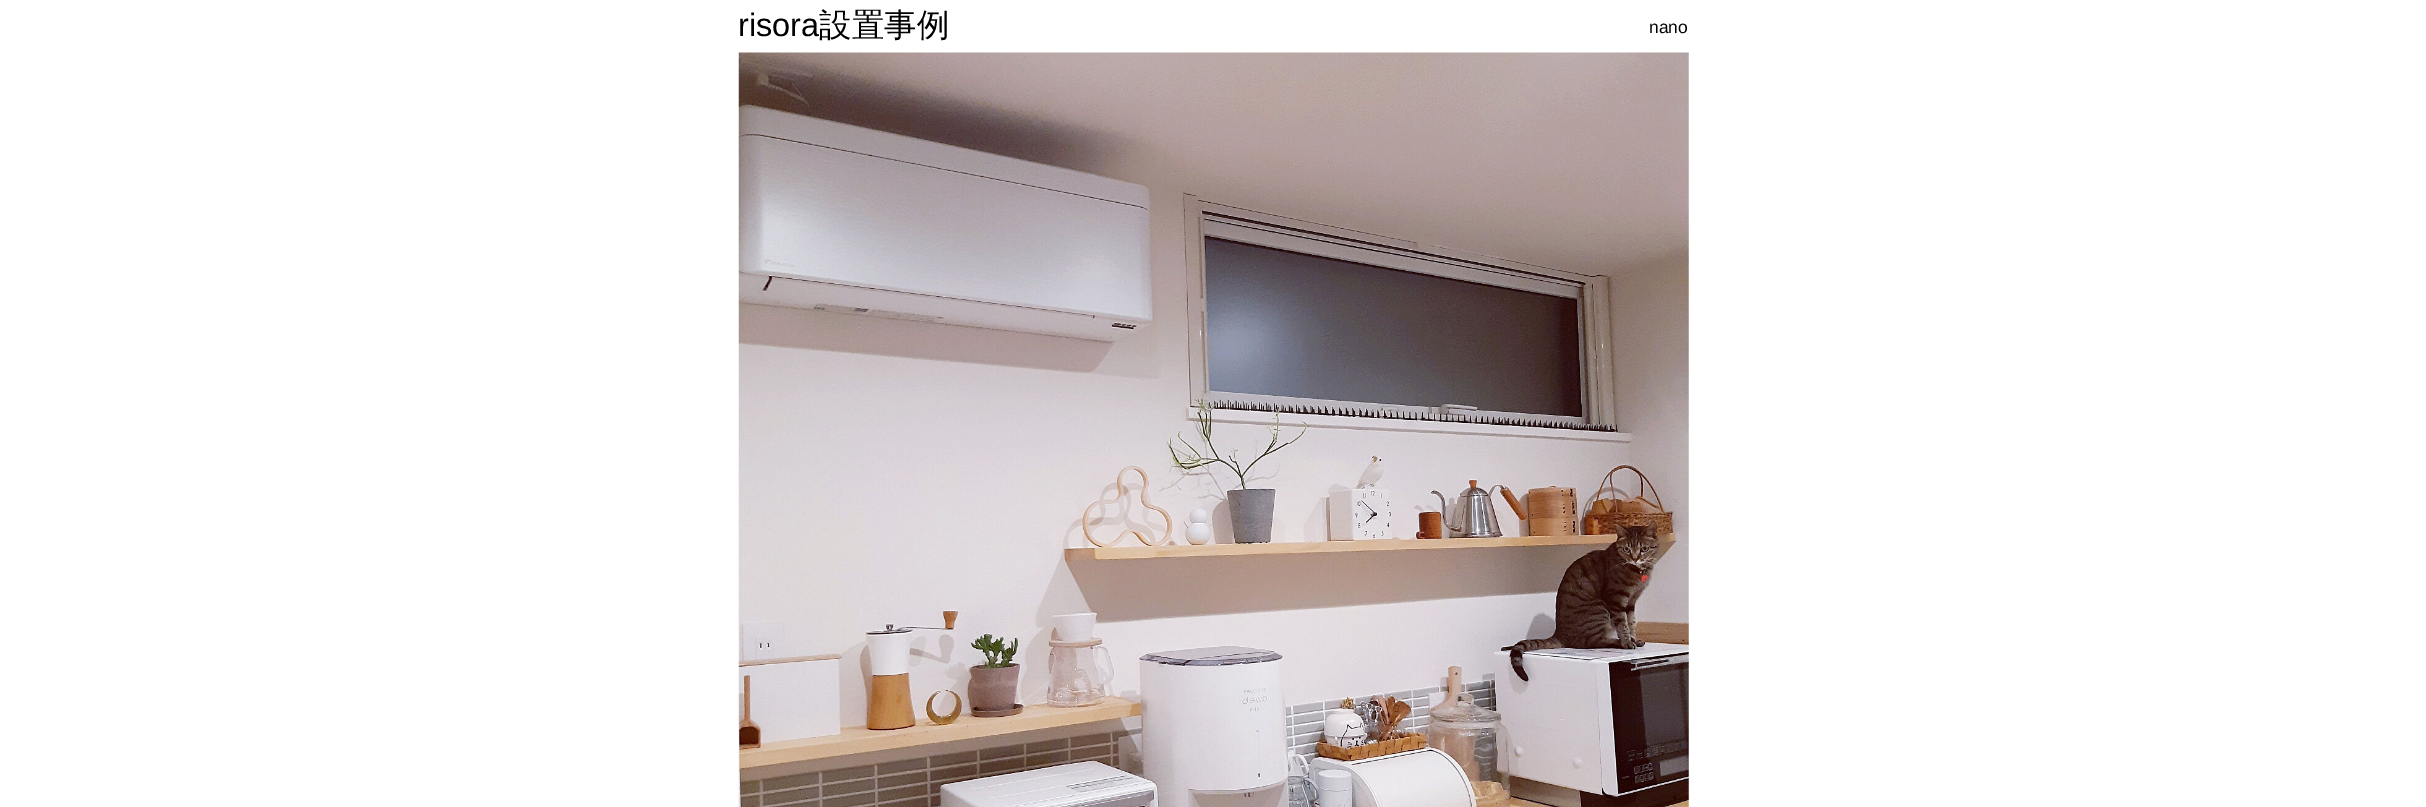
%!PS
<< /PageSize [2426 807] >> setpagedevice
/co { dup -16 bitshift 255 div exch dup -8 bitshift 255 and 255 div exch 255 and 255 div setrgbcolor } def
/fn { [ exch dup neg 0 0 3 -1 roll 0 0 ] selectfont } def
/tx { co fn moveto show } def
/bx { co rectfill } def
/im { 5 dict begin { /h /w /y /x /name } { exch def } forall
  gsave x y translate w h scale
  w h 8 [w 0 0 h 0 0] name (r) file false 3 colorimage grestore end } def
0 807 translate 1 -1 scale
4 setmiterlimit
0 0 2426 807 16#FFFFFF bx
(media/1.raw) 738 52 951 755 im
(risora) 738 36 /LiberationSans-Regular 32.5 16#000000 tx
(設置事例) 819 36 /WenQuanYiZenHei-Medium 32.5 16#000000 tx
(nano) 1649 33 /LiberationSans-Regular 17.5 16#000000 tx
showpage
